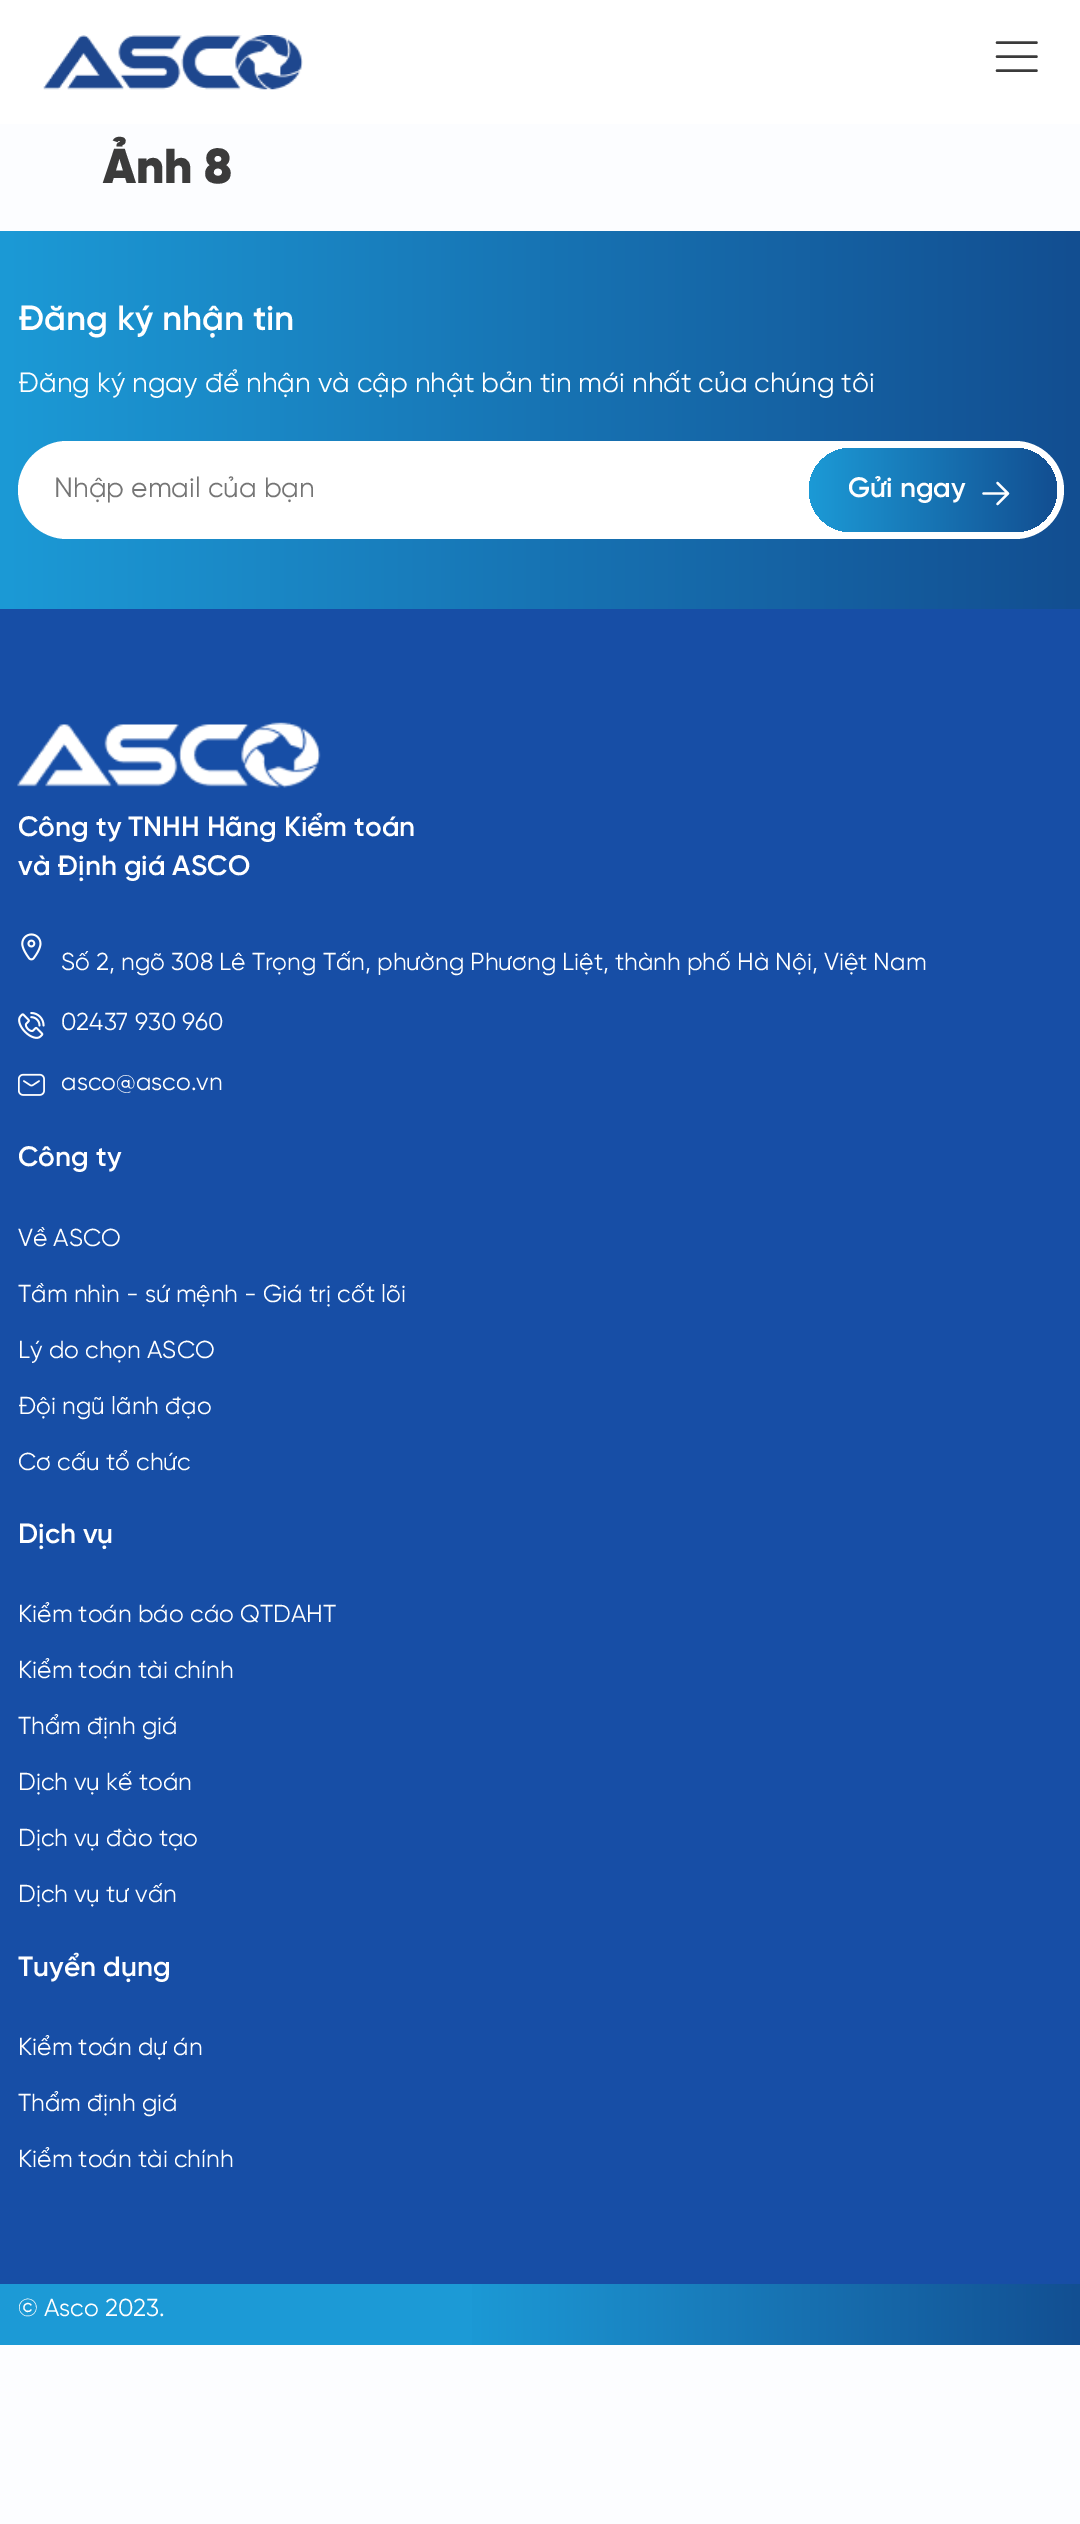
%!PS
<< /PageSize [1080 2524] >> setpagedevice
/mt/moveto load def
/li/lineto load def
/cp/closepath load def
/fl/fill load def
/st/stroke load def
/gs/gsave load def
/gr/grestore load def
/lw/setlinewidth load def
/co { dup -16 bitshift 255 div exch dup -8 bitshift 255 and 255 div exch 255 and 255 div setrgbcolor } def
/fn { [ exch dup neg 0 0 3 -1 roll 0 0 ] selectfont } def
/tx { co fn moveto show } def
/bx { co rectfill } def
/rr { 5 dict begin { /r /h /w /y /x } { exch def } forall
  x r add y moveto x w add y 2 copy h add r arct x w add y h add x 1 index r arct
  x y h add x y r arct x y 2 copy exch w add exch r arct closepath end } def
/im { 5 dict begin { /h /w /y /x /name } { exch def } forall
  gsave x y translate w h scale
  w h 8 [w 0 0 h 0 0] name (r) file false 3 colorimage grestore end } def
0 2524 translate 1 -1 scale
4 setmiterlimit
0 0 1080 2524 16#FCFDFF bx
0 0 1080 124 16#FFFFFF bx
(media/1.raw) 43 35 260 55 im
16#3B3B3B co
2.4 lw
1 setlinecap
997 42.5 mt 1036.5 42.5 li 997 56.5 mt 1036.5 56.5 li 997 70.5 mt 1036.5 70.5 li st
gs 0 231 mt 1080 231 li 1080 609 li 0 609 li cp clip newpath
<< /ShadingType 2 /ColorSpace /DeviceRGB /Coords [0 420 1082 420] /Extend [true true] /Function << /FunctionType 2 /Domain [0 1] /C0 [.11 .604 .839] /C1 [.071 .306 .569] /N 1 >> >> shfill gr
16#FFFFFF co
18 441 1046 98 49 rr fl
gs 809 448 248 84 42 rr clip newpath
<< /ShadingType 2 /ColorSpace /DeviceRGB /Coords [809 490 1057 490] /Extend [true true] /Function << /FunctionType 2 /Domain [0 1] /C0 [.11 .604 .839] /C1 [.071 .306 .569] /N 1 >> >> shfill gr
2.3 lw
1 setlinejoin
983.5 493.5 mt 1006 493.5 li 997.5 483 mt 1008 493.5 li 997.5 504 li st
0 609 1080 1675 16#174EA6 bx
(media/2.raw) 17 722 304 66 im
(media/3.raw) 21 933 21 28 im
(media/4.raw) 18 1012 27 27 im
(media/5.raw) 18 1073 27 23 im
gs 0 2284 mt 1080 2284 li 1080 2345 li 0 2345 li cp clip newpath
<< /ShadingType 2 /ColorSpace /DeviceRGB /Coords [0 2314 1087 2314] /Extend [true true] /Function << /FunctionType 3 /Domain [0 1] /Functions [<< /FunctionType 2 /Domain [0 1] /C0 [.11 .604 .839] /C1 [.11 .604 .839] /N 1 >> << /FunctionType 2 /Domain [0 1] /C0 [.11 .604 .839] /C1 [.071 .306 .569] /N 1 >>] /Bounds [.43] /Encode [0 1 0 1] >> >> shfill gr
(Ảnh 8) 103 183 /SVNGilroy-Black 49 16#3B3B3B tx
(Đăng ký nhận tin) 18 330 /SVNGilroy-SemiBold 35 16#FFFFFF tx
(Đăng ký ngay để nhận và cập nhật bản tin mới nhất của chúng tôi) 18 392 /SVNGilroy-Regular 28 16#FFFFFF tx
(Nhập email của bạn) 54 497 /SVNGilroy-Regular 28 16#757575 tx
(Gửi ngay) 848 497 /SVNGilroy-SemiBold 28 16#FFFFFF tx
(Công ty TNHH Hãng Kiểm toán) 18 836 /SVNGilroy-SemiBold 28 16#FFFFFF tx
(và Định giá ASCO) 18 875 /SVNGilroy-SemiBold 28 16#FFFFFF tx
(Số 2, ngõ 308 Lê Trọng Tấn, phường Phương Liệt, thành phố Hà Nội, Việt Nam) 61 970 /SVNGilroy-Regular 24.5 16#FFFFFF tx
(02437 930 960) 61 1030 /SVNGilroy-Regular 24.5 16#FFFFFF tx
(asco@asco.vn) 61 1090 /SVNGilroy-Regular 24.5 16#FFFFFF tx
(Công ty) 18 1166 /SVNGilroy-SemiBold 28 16#FFFFFF tx
(Về ASCO) 18 1246 /SVNGilroy-Regular 24.5 16#FFFFFF tx
(Tầm nhìn - sứ mệnh - Giá trị cốt lõi) 18 1302 /SVNGilroy-Regular 24.5 16#FFFFFF tx
(Lý do chọn ASCO) 18 1358 /SVNGilroy-Regular 24.5 16#FFFFFF tx
(Đội ngũ lãnh đạo) 18 1414 /SVNGilroy-Regular 24.5 16#FFFFFF tx
(Cơ cấu tổ chức) 18 1470 /SVNGilroy-Regular 24.5 16#FFFFFF tx
(Dịch vụ) 18 1543 /SVNGilroy-SemiBold 28 16#FFFFFF tx
(Kiểm toán báo cáo QTDAHT) 18 1622 /SVNGilroy-Regular 24.5 16#FFFFFF tx
(Kiểm toán tài chính) 18 1678 /SVNGilroy-Regular 24.5 16#FFFFFF tx
(Thẩm định giá) 18 1734 /SVNGilroy-Regular 24.5 16#FFFFFF tx
(Dịch vụ kế toán) 18 1790 /SVNGilroy-Regular 24.5 16#FFFFFF tx
(Dịch vụ đào tạo) 18 1846 /SVNGilroy-Regular 24.5 16#FFFFFF tx
(Dịch vụ tư vấn) 18 1902 /SVNGilroy-Regular 24.5 16#FFFFFF tx
(Tuyển dụng) 18 1976 /SVNGilroy-SemiBold 28 16#FFFFFF tx
(Kiểm toán dự án) 18 2055 /SVNGilroy-Regular 24.5 16#FFFFFF tx
(Thẩm định giá) 18 2111 /SVNGilroy-Regular 24.5 16#FFFFFF tx
(Kiểm toán tài chính) 18 2167 /SVNGilroy-Regular 24.5 16#FFFFFF tx
(© Asco 2023.) 18 2316 /SVNGilroy-Regular 24.5 16#FFFFFF tx
showpage
